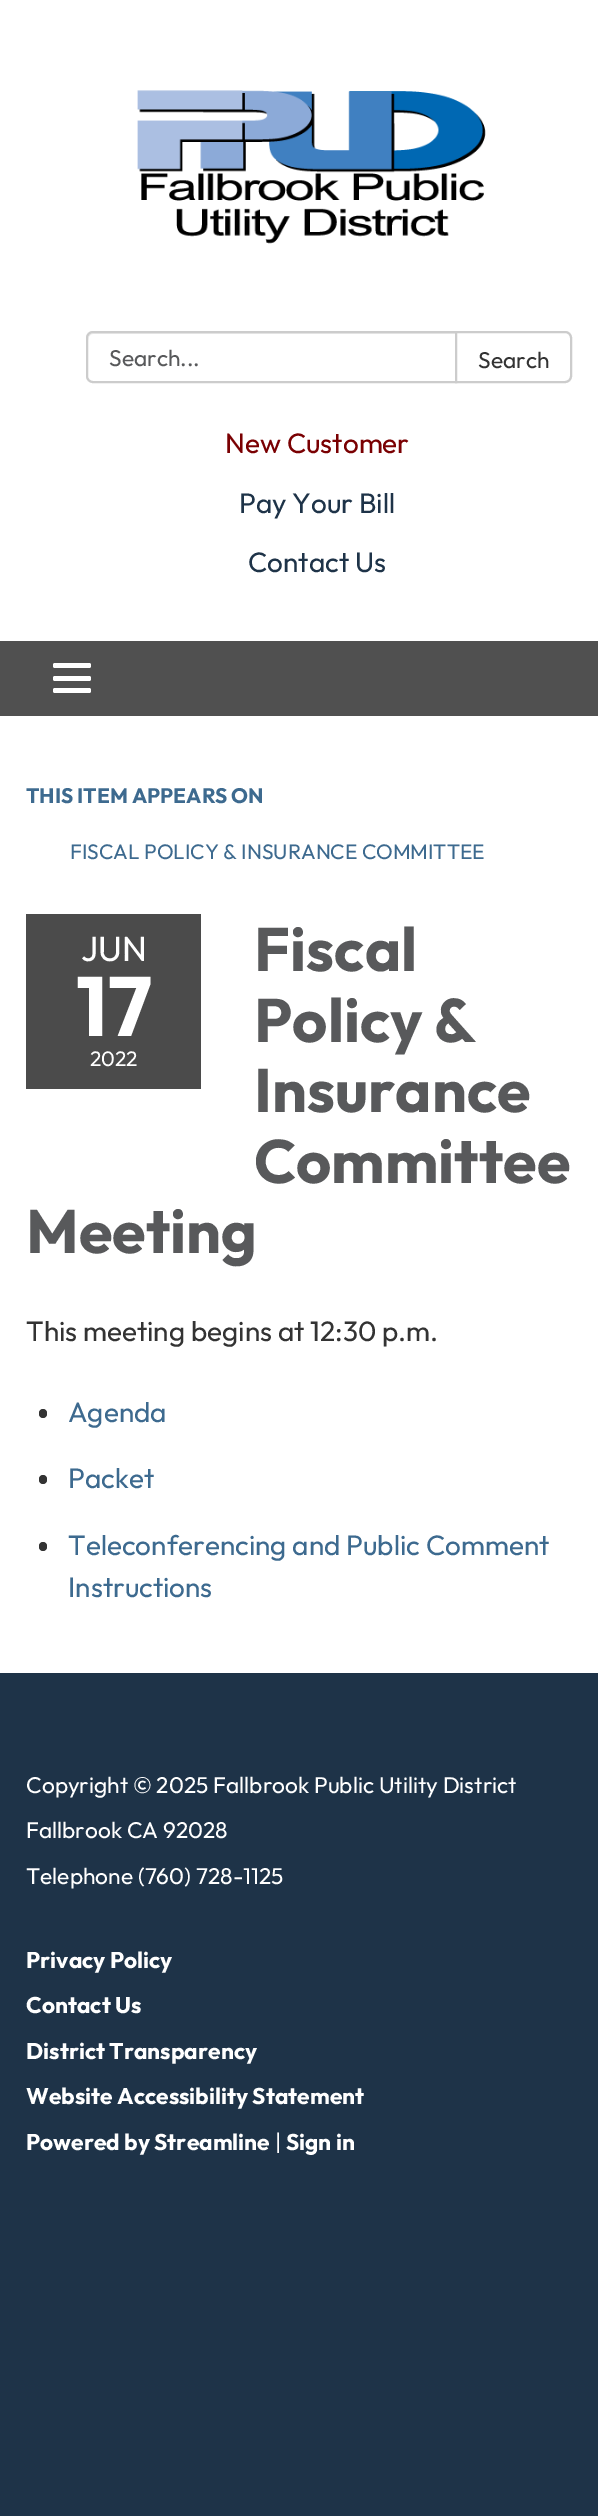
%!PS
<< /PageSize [598 2516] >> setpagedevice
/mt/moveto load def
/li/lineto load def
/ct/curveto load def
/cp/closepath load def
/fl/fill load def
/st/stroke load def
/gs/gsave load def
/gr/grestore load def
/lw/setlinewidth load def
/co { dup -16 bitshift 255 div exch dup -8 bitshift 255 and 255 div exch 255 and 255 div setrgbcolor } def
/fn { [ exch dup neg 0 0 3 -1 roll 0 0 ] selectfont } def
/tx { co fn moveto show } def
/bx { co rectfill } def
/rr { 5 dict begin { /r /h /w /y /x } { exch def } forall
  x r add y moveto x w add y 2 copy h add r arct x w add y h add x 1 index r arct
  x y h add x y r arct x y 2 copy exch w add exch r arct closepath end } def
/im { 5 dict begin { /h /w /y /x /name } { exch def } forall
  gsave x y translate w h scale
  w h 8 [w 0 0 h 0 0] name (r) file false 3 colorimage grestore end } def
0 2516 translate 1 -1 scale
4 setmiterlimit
0 0 598 2516 16#1E3348 bx
0 0 598 641 16#FFFFFF bx
(media/1.raw) 137 90 349 154 im
16#ECECEC co
93 334 mt 455 334 li 455 333 li 93 333 li 89 333 88 337 88 340 ct 88 337 90 334 93 334 ct cp fl
16#CCCCCC co
2 lw
93 332 mt 456 332 li 456 382 li 93 382 li 89.5 382 87 379.5 87 376 ct 87 338 li 87 334.5 89.5 332 93 332 ct cp st
16#FFFFFF co
456 332 mt 565 332 li 568.5 332 571 334.5 571 338 ct 571 376 li 571 379.5 568.5 382 565 382 ct 456 382 li cp gs fl gr
16#CCCCCC co
st
0 641 598 75 16#505050 bx
16#FFFFFF co
53 663 38 5 2 rr fl
53 676 38 5 2 rr fl
53 688 38 5 2 rr fl
0 716 598 957 16#FFFFFF bx
26 914 175 175 16#4B4B4B bx
16#333333 co
39 1409 8 9 4 rr fl
39 1475 8 9 4 rr fl
39 1542 8 9 4 rr fl
(Search...) 109 366 /Outfit-Regular 22.75 16#58595B tx
(Search) 478 368 /Outfit-Regular 22.75 16#333333 tx
(New Customer) 225 453 /Outfit-Regular 28 16#7A0002 tx
(Pay Your Bill) 239 513 /Outfit-Regular 28 16#1E3348 tx
(Contact Us) 248 572 /Outfit-Regular 28 16#1E3348 tx
(THIS ITEM APPEARS ON) 26 803 /Outfit-Bold 21 16#3D6A8F tx
(FISCAL POLICY & INSURANCE COMMITTEE) 70 859 /Outfit-Regular 21 16#3D6A8F tx
(Fiscal) 254 971 /Outfit-Bold 61.25 16#58595B tx
(Policy &) 254 1042 /Outfit-Bold 61.25 16#58595B tx
(Insurance) 254 1112 /Outfit-Bold 61.25 16#58595B tx
(Committee) 254 1183 /Outfit-Bold 61.25 16#58595B tx
(Meeting) 26 1253 /Outfit-Bold 61.25 16#58595B tx
(JUN) 81 961 /Outfit-Regular 35 16#FFFFFF tx
(17) 76 1036 /Outfit-Bold 84 16#FFFFFF tx
(2022) 90 1066 /Outfit-Regular 21 16#FFFFFF tx
(This meeting begins at 12:30 p.m.) 26 1341 /Outfit-Regular 28 16#333333 tx
(Agenda) 68 1422 /Outfit-Regular 28 16#3D6A8F tx
(Packet) 68 1488 /Outfit-Regular 28 16#3D6A8F tx
(Teleconferencing and Public Comment) 68 1555 /Outfit-Regular 28 16#3D6A8F tx
(Instructions) 68 1597 /Outfit-Regular 28 16#3D6A8F tx
(Copyright © 2025 Fallbrook Public Utility District) 26 1793 /Outfit-Regular 22.75 16#FFFFFF tx
(Fallbrook CA 92028) 26 1838 /Outfit-Regular 22.75 16#FFFFFF tx
(Telephone \(760\) 728-1125) 26 1884 /Outfit-Regular 22.75 16#FFFFFF tx
(Privacy Policy) 26 1968 /Outfit-Bold 22.75 16#FFFFFF tx
(Contact Us) 26 2013 /Outfit-Bold 22.75 16#FFFFFF tx
(District Transparency) 26 2059 /Outfit-Bold 22.75 16#FFFFFF tx
(Website Accessibility Statement) 26 2104 /Outfit-Bold 22.75 16#FFFFFF tx
(Powered by Streamline) 26 2150 /Outfit-Bold 22.75 16#FFFFFF tx
(|) 275 2150 /Outfit-Regular 22.75 16#FFFFFF tx
(Sign in) 286 2150 /Outfit-Bold 22.75 16#FFFFFF tx
showpage
